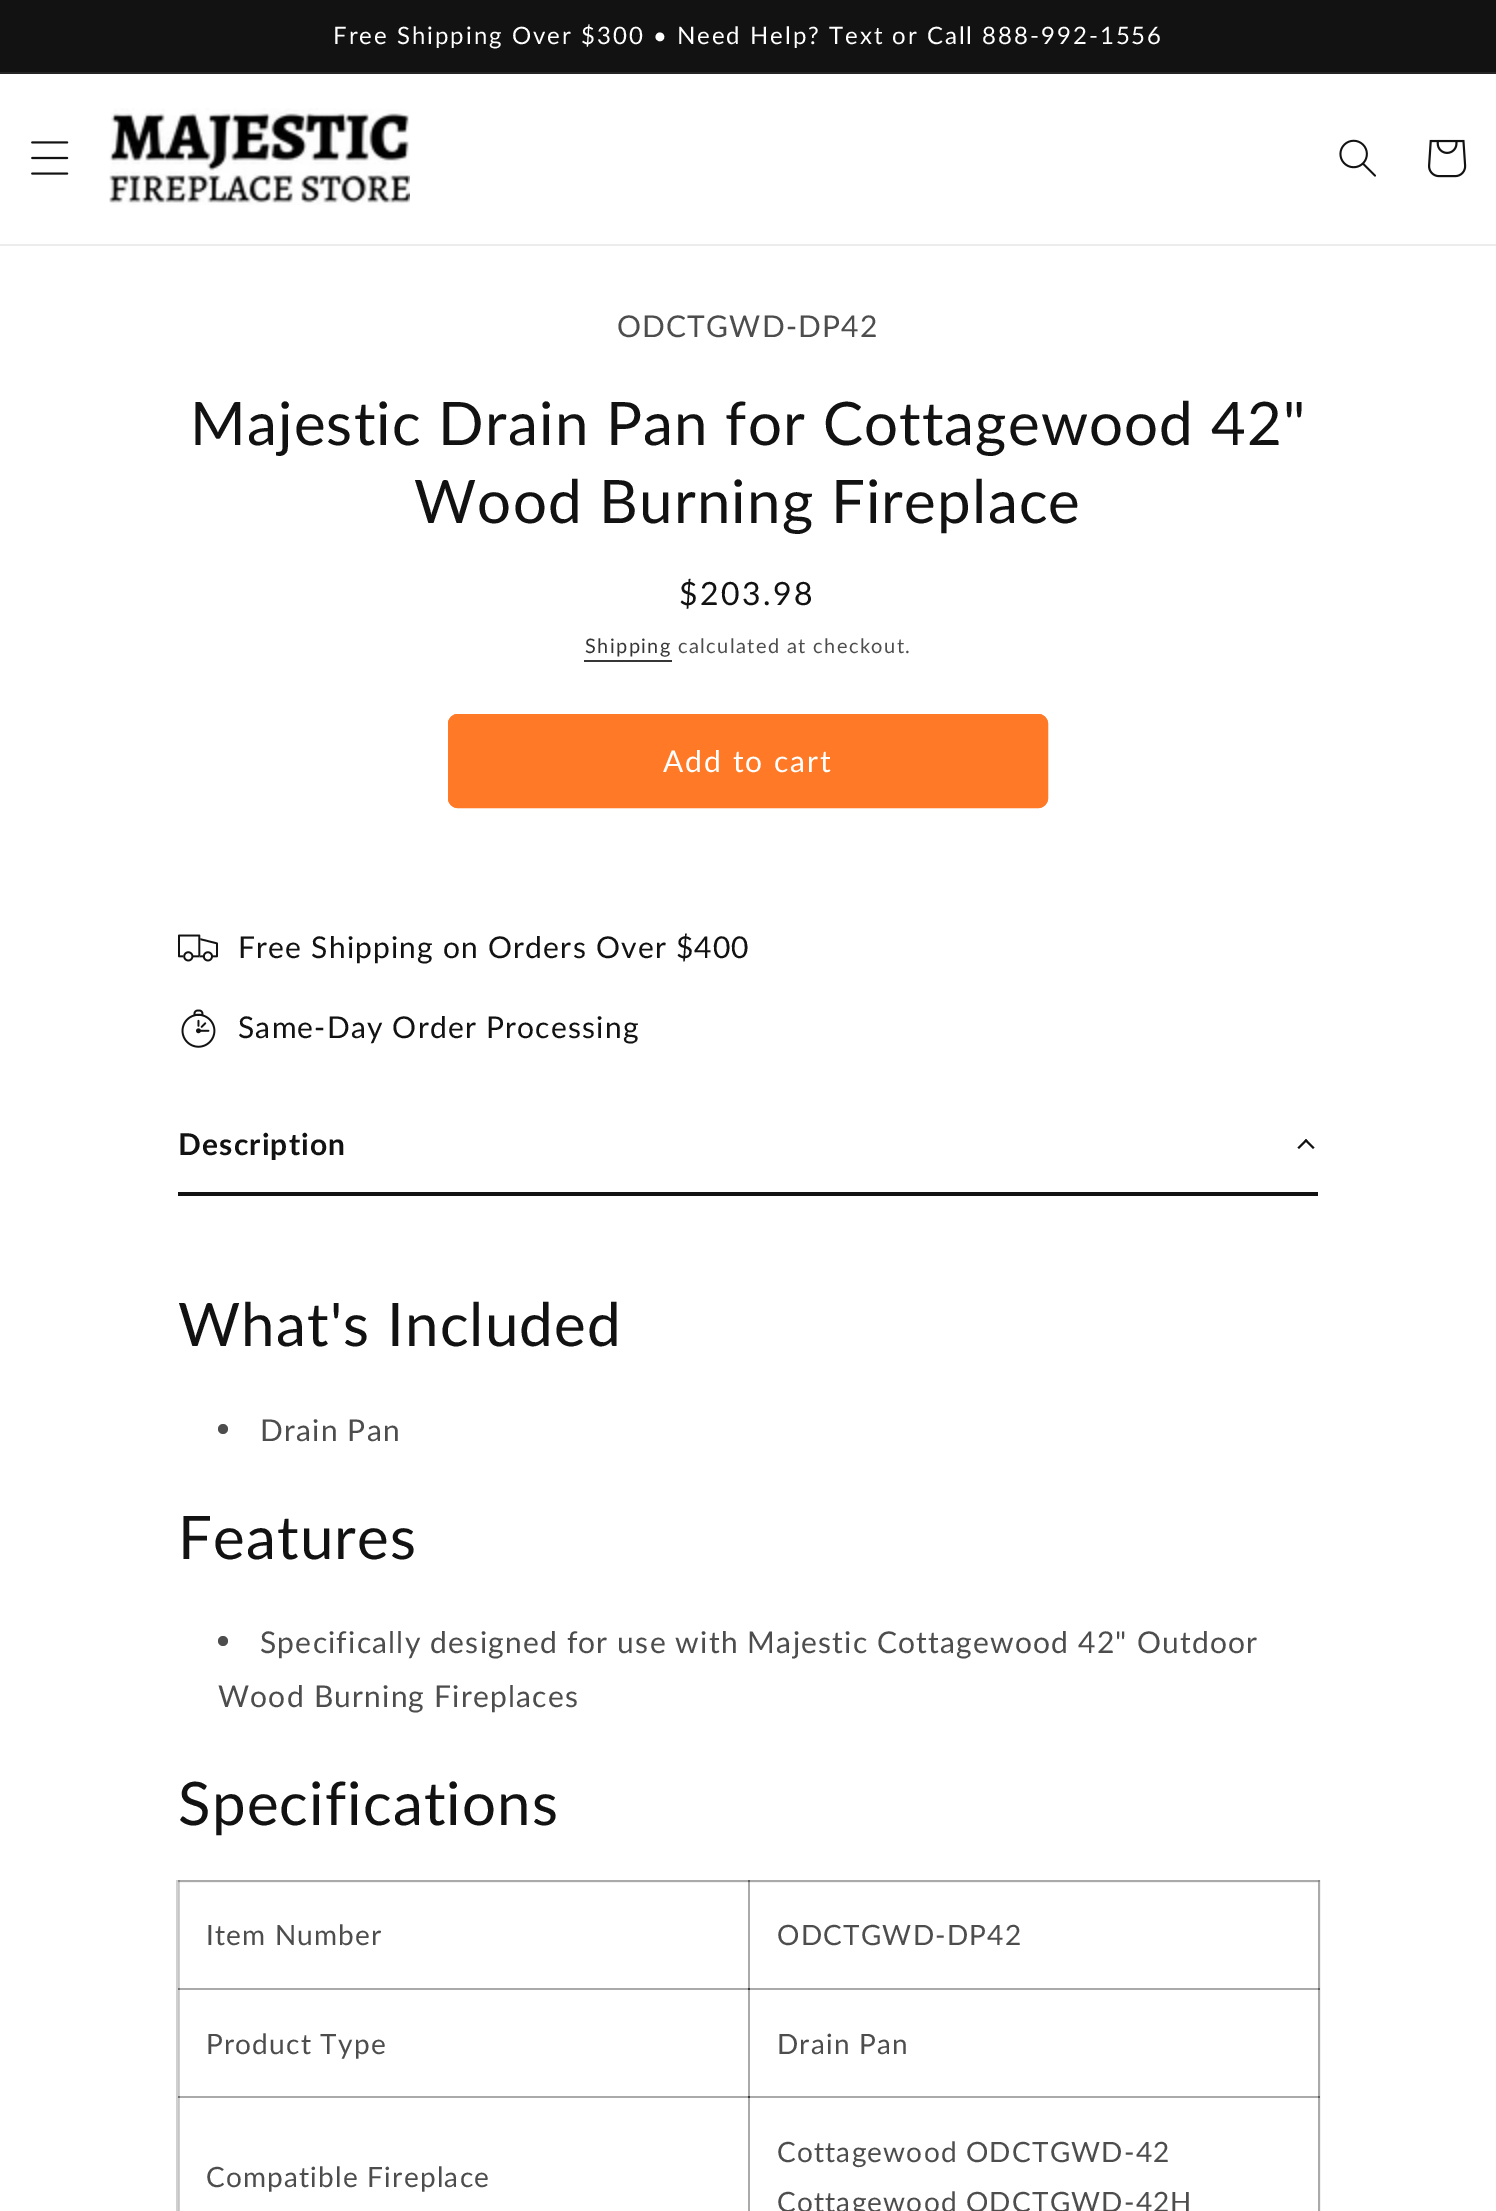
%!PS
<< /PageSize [1496 2211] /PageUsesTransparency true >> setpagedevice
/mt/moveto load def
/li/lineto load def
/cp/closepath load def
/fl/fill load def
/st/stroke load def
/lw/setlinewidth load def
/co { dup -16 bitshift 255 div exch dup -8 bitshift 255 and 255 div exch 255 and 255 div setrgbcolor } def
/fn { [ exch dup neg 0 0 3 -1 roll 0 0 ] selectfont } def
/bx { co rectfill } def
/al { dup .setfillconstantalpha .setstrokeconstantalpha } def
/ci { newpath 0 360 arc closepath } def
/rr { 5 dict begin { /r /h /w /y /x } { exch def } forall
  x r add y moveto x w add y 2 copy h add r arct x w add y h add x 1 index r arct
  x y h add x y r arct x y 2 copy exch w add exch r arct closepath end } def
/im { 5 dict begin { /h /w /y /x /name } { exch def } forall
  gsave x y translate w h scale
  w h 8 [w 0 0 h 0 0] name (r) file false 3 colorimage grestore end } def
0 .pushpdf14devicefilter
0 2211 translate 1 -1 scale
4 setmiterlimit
0 0 1496 2211 16#FFFFFF bx
0 0 1496 72 16#121212 bx
0 72 1496 2 16#252525 bx
0 244 1496 2 16#ECECEC bx
(media/1.raw) 31 141 38 34 im
(media/2.raw) 109 108 301 97 im
(media/3.raw) 1339 139 37 38 im
(media/4.raw) 1428 139 39 39 im
584 660 88 2 16#363636 bx
16#FF7926 co
448 714 600 94 10 rr fl
2 lw
449 715 598 92 9 rr st
(media/5.raw) 178 934 40 28 im
(media/6.raw) 181 1009 35 39 im
178 1192 1140 4 16#121212 bx
1299 1149 mt 1297.5 1147.5 li 1306 1139 li 1307.5 1140.5 li cp fl
1313 1149 mt 1304.5 1140.5 li 1306 1139 li 1314.5 1147.5 li cp fl
16#4D4D4D co
223 1429 5 ci fl
223 1641 5 ci fl
16#D0D0D0 co
177 1881 1142 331 rectstroke
748 1880 572 2 16#AAAAAA bx
0.2 al
748 1988 572 2 16#121212 bx
748 2096 572 2 16#121212 bx
1318 2096 2 115 16#121212 bx
1318 1988 2 110 16#121212 bx
1318 1880 2 110 16#121212 bx
748 2096 2 115 16#121212 bx
178 2096 572 2 16#121212 bx
748 2096 2 115 16#121212 bx
748 2096 572 2 16#121212 bx
748 1988 2 110 16#121212 bx
178 1988 572 2 16#121212 bx
748 1988 2 110 16#121212 bx
748 1988 572 2 16#121212 bx
748 1880 2 110 16#121212 bx
178 1880 572 2 16#121212 bx
748 1880 2 110 16#121212 bx
178 2096 2 115 16#121212 bx
178 2096 572 2 16#121212 bx
178 1988 2 110 16#121212 bx
178 1988 572 2 16#121212 bx
178 1880 2 110 16#121212 bx
/Lato-Regular 24 fn
1 al
16#FFFFFF co
333 44 mt 2 0 (Free Shipping Over $300 • Need Help? Text or Call 888-992-1556) ashow
/Lato-Regular 30 fn
16#4D4D4D co
617 337 mt 1.2 0 (ODCTGWD-DP42) ashow
/Lato-Regular 60 fn
16#121212 co
190 445 mt 1.2 0 (Majestic Drain Pan for Cottagewood 42") ashow
414 523 mt 1.2 0 (Wood Burning Fireplace) ashow
/Lato-Regular 32 fn
679 605 mt 2.5 0 ($203.98) ashow
/Lato-Regular 20 fn
16#363636 co
585 653 mt 1.4 0 (Shipping) ashow
16#4D4D4D co
678 653 mt 1.4 0 (calculated at checkout.) ashow
/Lato-Regular 30 fn
16#FFFFFF co
663 772 mt 2 0 (Add to cart) ashow
16#121212 co
238 958 mt 1.2 0 (Free Shipping on Orders Over $400) ashow
238 1038 mt 1.2 0 (Same-Day Order Processing) ashow
/Lato-Bold 30 fn
178 1155 mt 1.2 0 (Description) ashow
/Lato-Regular 60 fn
178 1346 mt 1.2 0 (What's Included) ashow
/Lato-Regular 30 fn
16#4D4D4D co
260 1441 mt 1.2 0 (Drain Pan) ashow
/Lato-Regular 60 fn
16#121212 co
178 1559 mt 1.2 0 (Features) ashow
/Lato-Regular 30 fn
16#4D4D4D co
260 1653 mt 1.2 0 (Specifically designed for use with Majestic Cottagewood 42" Outdoor) ashow
218 1707 mt 1.2 0 (Wood Burning Fireplaces) ashow
/Lato-Regular 60 fn
16#121212 co
178 1825 mt 1.2 0 (Specifications) ashow
/Lato-Regular 28 fn
16#4D4D4D co
206 1945 mt 1.2 0 (Item Number) ashow
777 1945 mt 1.2 0 (ODCTGWD-DP42) ashow
206 2054 mt 1.2 0 (Product Type) ashow
777 2054 mt 1.2 0 (Drain Pan) ashow
206 2187 mt 1.2 0 (Compatible Fireplace) ashow
777 2162 mt 1.2 0 (Cottagewood ODCTGWD-42) ashow
777 2212 mt 1.2 0 (Cottagewood ODCTGWD-42H) ashow
.poppdf14devicefilter showpage
